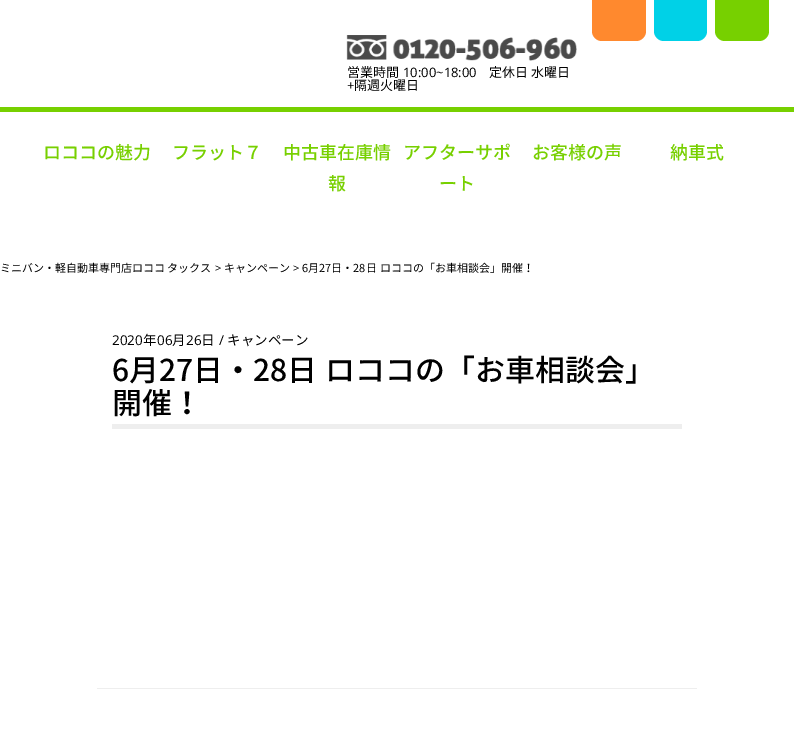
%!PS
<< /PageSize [794 744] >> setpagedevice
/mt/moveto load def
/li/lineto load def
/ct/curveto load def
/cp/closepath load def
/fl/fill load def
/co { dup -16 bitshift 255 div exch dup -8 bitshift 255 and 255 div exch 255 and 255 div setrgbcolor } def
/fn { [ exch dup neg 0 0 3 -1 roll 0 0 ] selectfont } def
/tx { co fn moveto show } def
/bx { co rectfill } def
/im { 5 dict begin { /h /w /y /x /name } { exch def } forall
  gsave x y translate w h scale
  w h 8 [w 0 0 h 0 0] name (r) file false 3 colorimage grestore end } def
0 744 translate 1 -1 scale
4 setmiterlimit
0 0 794 744 16#FFFFFF bx
16#FF892E co
592 0 mt 646 0 li 646 31 li 646 36.5 641.5 41 636 41 ct 602 41 li 596.5 41 592 36.5 592 31 ct cp fl
16#00D1E7 co
654 0 mt 707 0 li 707 31 li 707 36.5 702.5 41 697 41 ct 664 41 li 658.5 41 654 36.5 654 31 ct cp fl
16#77D000 co
715 0 mt 769 0 li 769 31 li 769 36.5 764.5 41 759 41 ct 725 41 li 719.5 41 715 36.5 715 31 ct cp fl
(media/1.raw) 346 35 231 26 im
0 107 794 5 16#77D000 bx
97 688 600 1 16#EEEEEE bx
112 424 570 5 16#EEEEEE bx
(営業時間) 347 77 /NotoSansJP-Regular 13 16#000000 tx
(10:00~18:00) 403 77 /OpenSans-Regular 13 16#000000 tx
(定休日 水曜日) 489 77 /NotoSansJP-Regular 13 16#000000 tx
(+) 347 90 /OpenSans-Regular 13 16#000000 tx
(隔週火曜日) 354 90 /NotoSansJP-Regular 13 16#000000 tx
(ロココの魅力) 43 159 /NotoSansJP-Medium 18 16#77D000 tx
(フラット７) 172 159 /NotoSansJP-Medium 18 16#77D000 tx
(中古車在庫情) 283 159 /NotoSansJP-Medium 18 16#77D000 tx
(報) 328 190 /NotoSansJP-Medium 18 16#77D000 tx
(アフターサポ) 403 159 /NotoSansJP-Medium 18 16#77D000 tx
(ート) 439 190 /NotoSansJP-Medium 18 16#77D000 tx
(お客様の声) 532 159 /NotoSansJP-Medium 18 16#77D000 tx
(納車式) 670 159 /NotoSansJP-Medium 18 16#77D000 tx
(ミニバン・軽自動車専門店ロココ タックス) 0 272 /NotoSansJP-Regular 11 16#000000 tx
(>) 215 272 /OpenSans-Regular 11 16#000000 tx
(キャンペーン) 224 272 /NotoSansJP-Regular 11 16#000000 tx
(>) 293 272 /OpenSans-Regular 11 16#000000 tx
/NotoSansJP-Regular 11 fn
302 272 mt 1 0 32 (6月27日・28日 ロココの「お車相談会」開催！) widthshow
(2020) 112 345 /OpenSans-Regular 13.5 16#000000 tx
(年) 143 345 /NotoSansJP-Regular 13.5 16#000000 tx
(06) 157 345 /OpenSans-Regular 13.5 16#000000 tx
(月) 172 345 /NotoSansJP-Regular 13.5 16#000000 tx
(26) 186 345 /OpenSans-Regular 13.5 16#000000 tx
(日) 201 345 /NotoSansJP-Regular 13.5 16#000000 tx
(/) 219 345 /OpenSans-Regular 13.5 16#000000 tx
(キャンペーン) 227 345 /NotoSansJP-Regular 13.5 16#000000 tx
/NotoSansJP-Medium 30 fn
112 381 mt 1 0 32 (6月27日・28日 ロココの「お車相談会」) widthshow
(開催！) 112 414 /NotoSansJP-Medium 30 16#000000 tx
showpage
